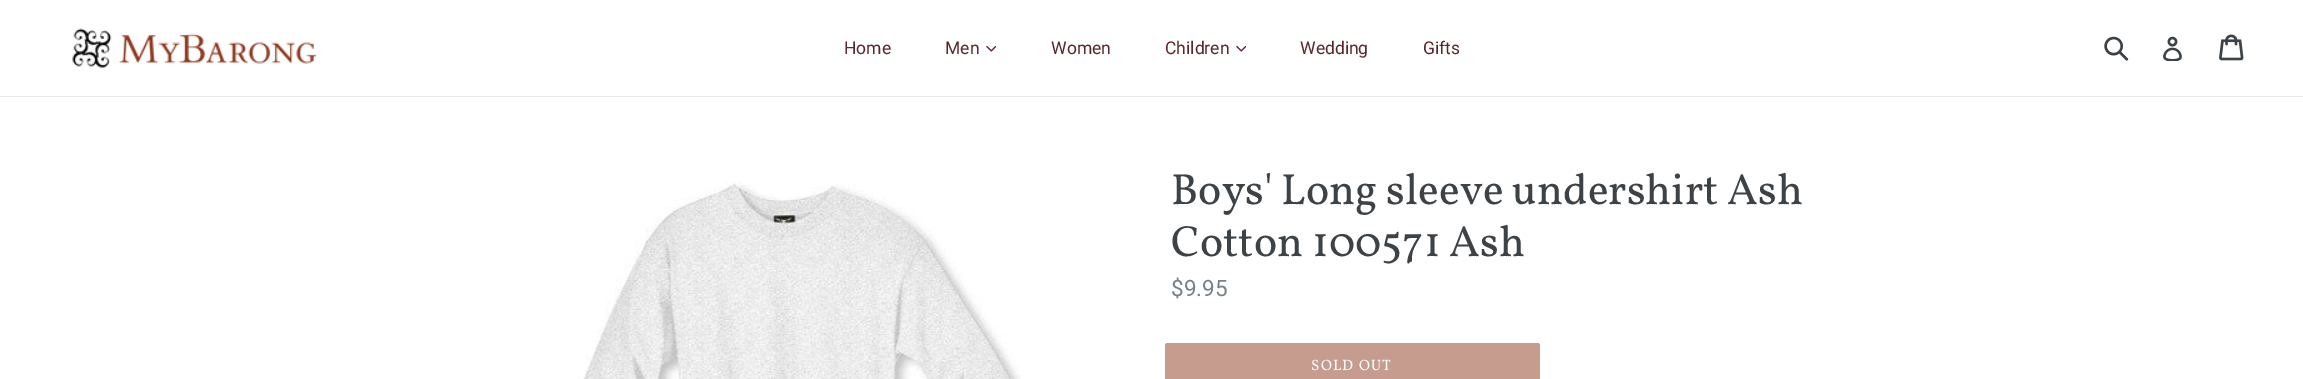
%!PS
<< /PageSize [2303 379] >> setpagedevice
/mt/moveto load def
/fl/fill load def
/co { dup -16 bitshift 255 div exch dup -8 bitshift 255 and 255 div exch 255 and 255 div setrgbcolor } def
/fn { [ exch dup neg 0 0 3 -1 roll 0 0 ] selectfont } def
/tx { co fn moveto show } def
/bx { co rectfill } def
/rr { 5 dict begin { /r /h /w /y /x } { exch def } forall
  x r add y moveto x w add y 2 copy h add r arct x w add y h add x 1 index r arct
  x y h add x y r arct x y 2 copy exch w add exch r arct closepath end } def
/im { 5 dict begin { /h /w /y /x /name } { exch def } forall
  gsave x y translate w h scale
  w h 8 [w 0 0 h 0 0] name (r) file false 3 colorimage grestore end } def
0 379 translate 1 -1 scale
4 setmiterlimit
0 0 2303 379 16#FFFFFF bx
0 96 2303 1 16#E8E9EB bx
(media/1.raw) 72 28 245 40 im
(media/2.raw) 986 45 10 7 im
(media/2.raw) 1236 45 10 7 im
(media/3.raw) 2104 36 25 25 im
(media/4.raw) 2163 36 19 25 im
(media/5.raw) 2219 34 25 27 im
(media/6.raw) 578 181 443 198 im
16#C69C8F co
1165 343 375 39 2.5 rr fl
(Home) 844 54 /Roboto-Regular 17.5 16#59282D tx
(Men) 945 54 /Roboto-Regular 17.5 16#59282D tx
(Women) 1051 54 /Roboto-Regular 17.5 16#59282D tx
(Children) 1165 54 /Roboto-Regular 17.5 16#59282D tx
(Wedding) 1300 54 /Roboto-Regular 17.5 16#59282D tx
(Gifts) 1423 54 /Roboto-Regular 17.5 16#59282D tx
(Boys' Long sleeve undershirt Ash) 1171 204 /Vollkorn-Regular 43.75 16#3D4246 tx
(Cotton 100571 Ash) 1171 256 /Vollkorn-Regular 43.75 16#3D4246 tx
($9.95) 1171 296 /Roboto-Regular 22.5 16#788188 tx
/Vollkorn-Regular 15 fn
16#FFFFFF co
1311 370 mt 1.25 0 (SOLD OUT) ashow
showpage
